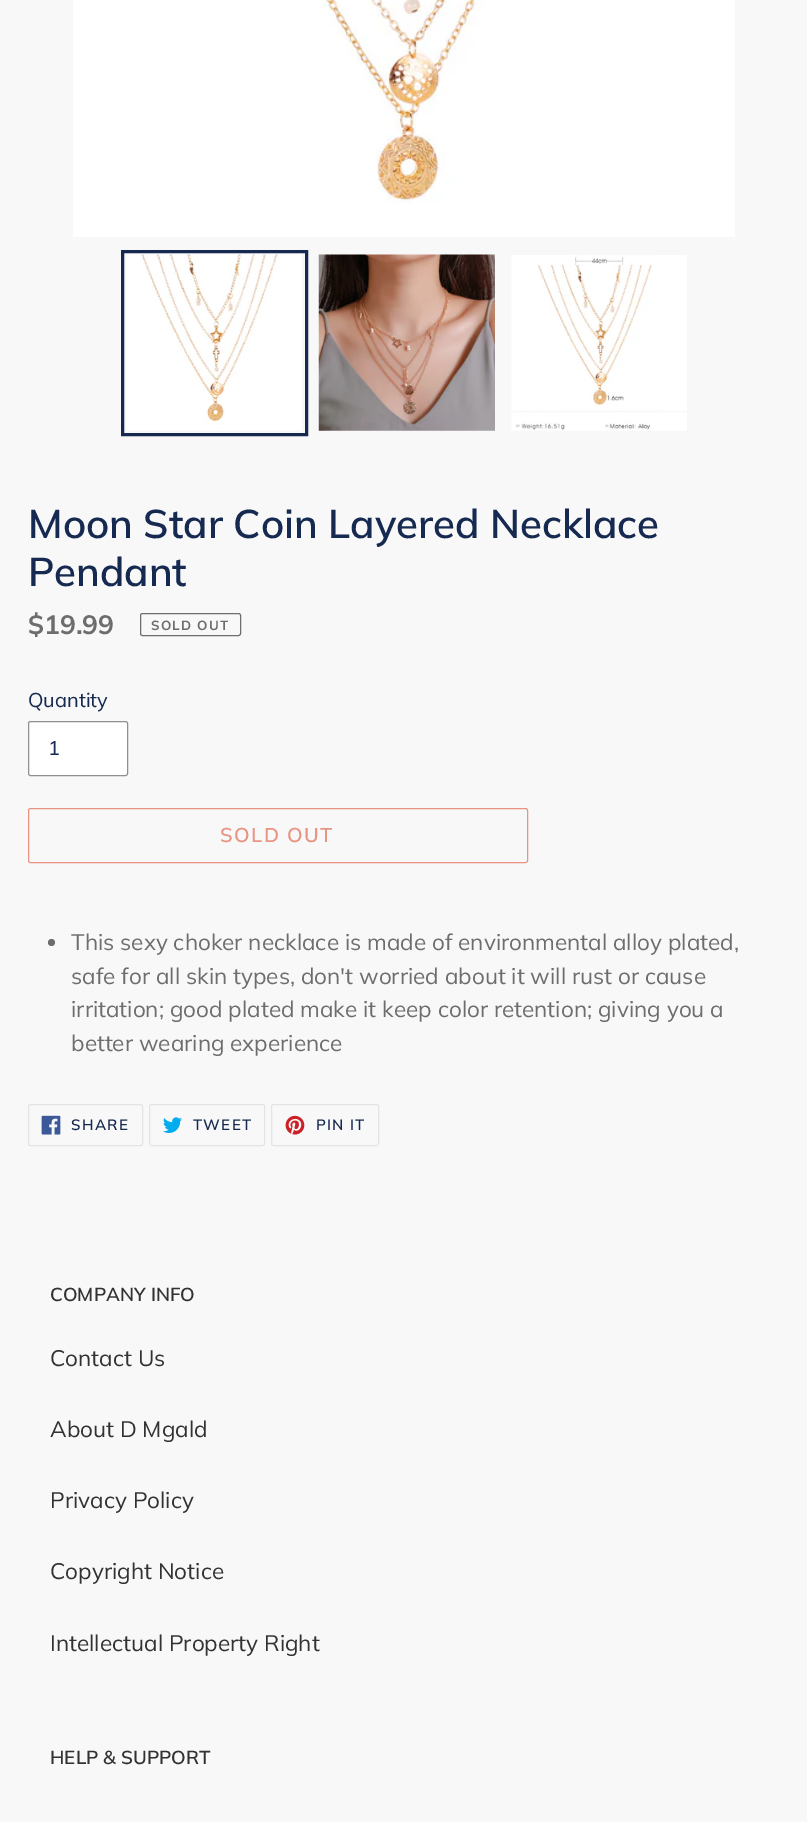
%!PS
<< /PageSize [807 1822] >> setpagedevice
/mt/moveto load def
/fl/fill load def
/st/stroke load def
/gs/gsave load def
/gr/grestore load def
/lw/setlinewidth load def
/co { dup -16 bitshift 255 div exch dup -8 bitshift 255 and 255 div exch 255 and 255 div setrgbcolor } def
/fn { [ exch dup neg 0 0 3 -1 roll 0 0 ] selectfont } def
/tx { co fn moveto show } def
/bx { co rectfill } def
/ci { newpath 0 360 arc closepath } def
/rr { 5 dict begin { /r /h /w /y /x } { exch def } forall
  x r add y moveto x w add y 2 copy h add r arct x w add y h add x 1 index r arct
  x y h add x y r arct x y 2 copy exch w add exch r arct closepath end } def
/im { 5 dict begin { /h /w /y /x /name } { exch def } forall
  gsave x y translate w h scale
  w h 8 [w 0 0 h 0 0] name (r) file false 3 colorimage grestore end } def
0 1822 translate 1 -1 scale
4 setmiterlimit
0 0 807 1822 16#F8F8F8 bx
(media/1.raw) 73 0 662 237 im
16#162950 co
3 lw
122.5 251.5 184 183 rectstroke
(media/2.raw) 126 254 176 177 im
(media/3.raw) 318 254 177 177 im
(media/4.raw) 511 255 176 176 im
16#6D6D6D co
1 lw
140.5 613.5 100 22 2 rr st
16#FFFFFF co
28.5 721.5 99 54 2 rr gs fl gr
16#909090 co
st
16#E99482 co
28.5 808.5 499 54 2 rr st
16#6D6D6D co
51.5 942.5 3.5 ci fl
16#E4E4E4 co
28.5 1104.5 114 41 2 rr st
(media/5.raw) 41 1115 20 20 im
149.5 1104.5 115 41 2 rr st
(media/6.raw) 163 1117 19 16 im
271.5 1104.5 107 41 2 rr st
(media/7.raw) 285 1115 20 20 im
(Moon Star Coin Layered Necklace) 28 538 /Muli-SemiBold 40 16#162950 tx
(Pendant) 28 586 /Muli-SemiBold 40 16#162950 tx
($19.99) 28 634 /Muli-Bold 26.5 16#6D6D6D tx
/Muli-Bold 13.25 fn
151 630 mt 1.25 0 (SOLD OUT) ashow
(Quantity) 28 707 /Muli-Regular 20 16#162950 tx
(1) 48 755 /Muli-Regular 20 16#162950 tx
/Muli-SemiBold 20 fn
16#E99482 co
220 842 mt 1.5 0 (SOLD OUT) ashow
(This sexy choker necklace is made of environmental alloy plated,) 71 950 /Muli-Regular 22.5 16#6D6D6D tx
(safe for all skin types, don't worried about it will rust or cause) 71 984 /Muli-Regular 22.5 16#6D6D6D tx
(irritation; good plated make it keep color retention; giving you a) 71 1017 /Muli-Regular 22.5 16#6D6D6D tx
(better wearing experience) 71 1051 /Muli-Regular 22.5 16#6D6D6D tx
/Muli-SemiBold 15 fn
16#162950 co
71 1130 mt 1.25 0 (SHARE) ashow
193 1130 mt 1.25 0 (TWEET) ashow
316 1130 mt 1.25 0 (PIN IT) ashow
(COMPANY INFO) 50 1301 /Muli-SemiBold 18.75 16#333232 tx
(Contact Us) 50 1366 /Muli-Regular 22.5 16#333232 tx
(About D Mgald) 50 1437 /Muli-Regular 22.5 16#333232 tx
(Privacy Policy) 50 1508 /Muli-Regular 22.5 16#333232 tx
(Copyright Notice) 50 1579 /Muli-Regular 22.5 16#333232 tx
(Intellectual Property Right) 50 1651 /Muli-Regular 22.5 16#333232 tx
(HELP & SUPPORT) 50 1764 /Muli-SemiBold 18.75 16#333232 tx
showpage
